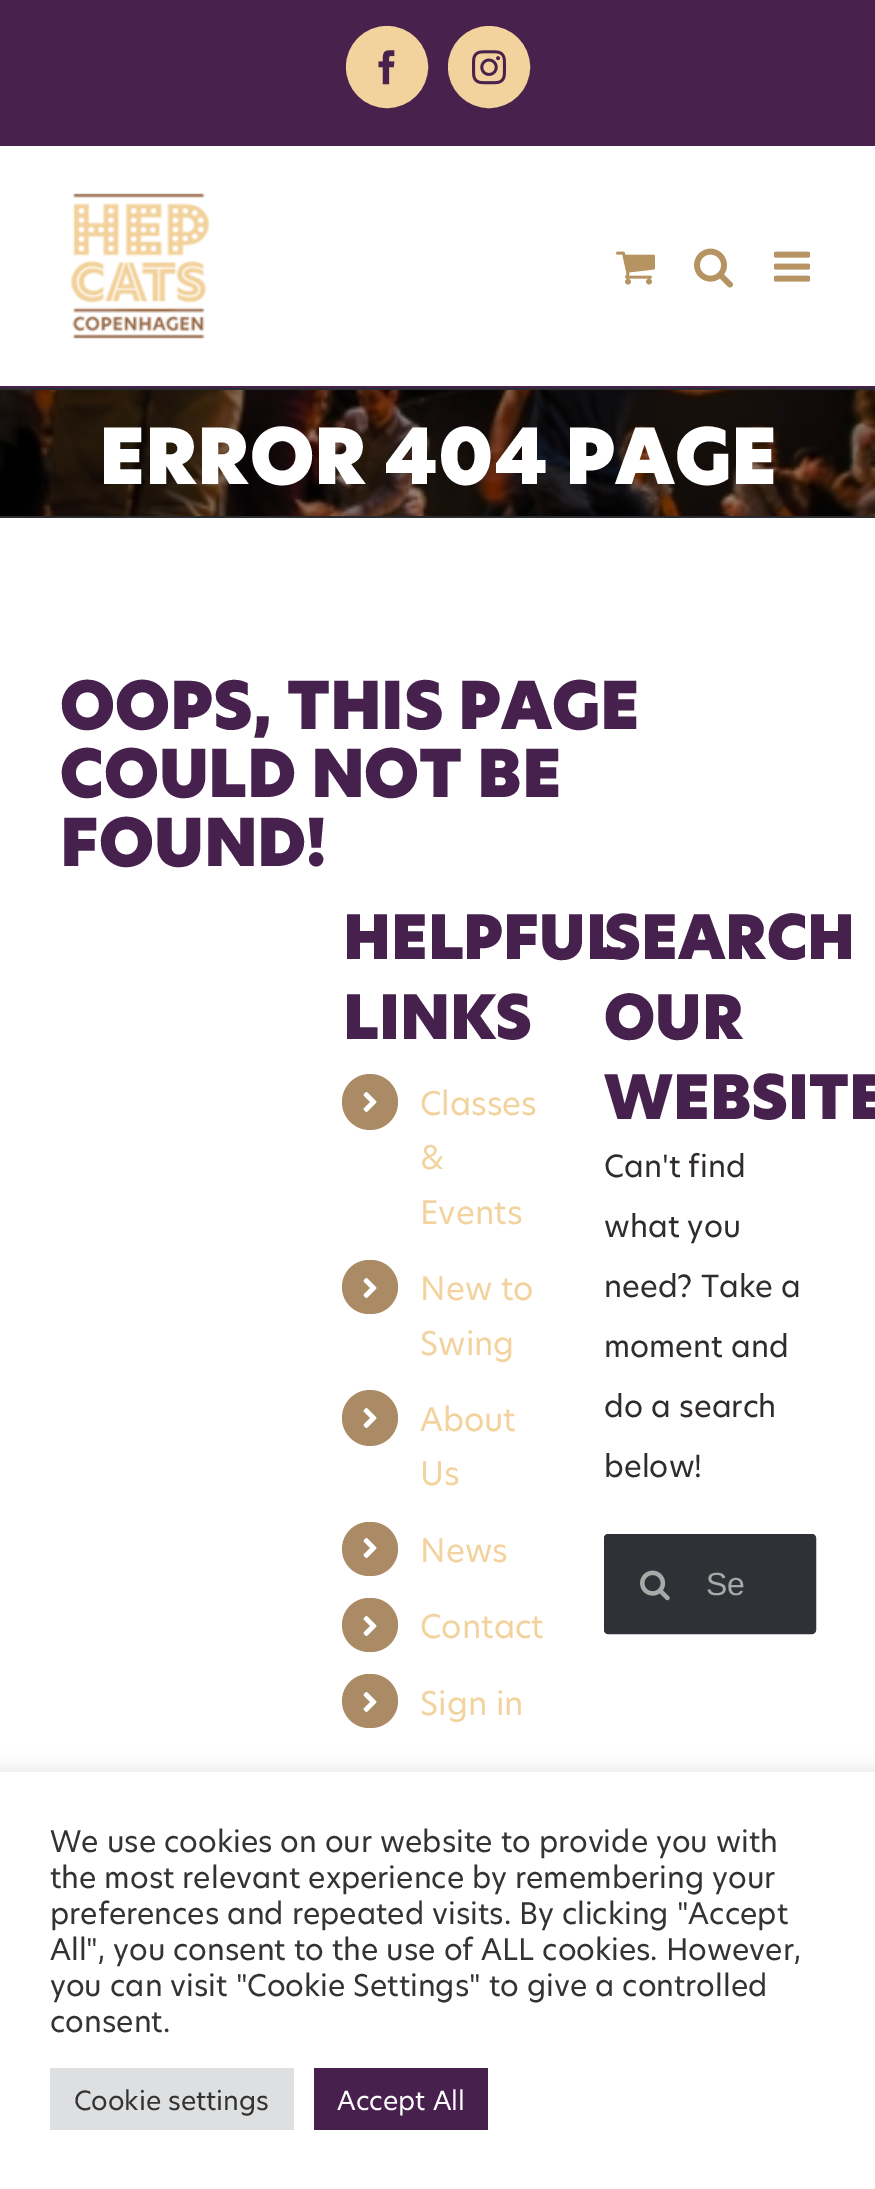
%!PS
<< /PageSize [875 2189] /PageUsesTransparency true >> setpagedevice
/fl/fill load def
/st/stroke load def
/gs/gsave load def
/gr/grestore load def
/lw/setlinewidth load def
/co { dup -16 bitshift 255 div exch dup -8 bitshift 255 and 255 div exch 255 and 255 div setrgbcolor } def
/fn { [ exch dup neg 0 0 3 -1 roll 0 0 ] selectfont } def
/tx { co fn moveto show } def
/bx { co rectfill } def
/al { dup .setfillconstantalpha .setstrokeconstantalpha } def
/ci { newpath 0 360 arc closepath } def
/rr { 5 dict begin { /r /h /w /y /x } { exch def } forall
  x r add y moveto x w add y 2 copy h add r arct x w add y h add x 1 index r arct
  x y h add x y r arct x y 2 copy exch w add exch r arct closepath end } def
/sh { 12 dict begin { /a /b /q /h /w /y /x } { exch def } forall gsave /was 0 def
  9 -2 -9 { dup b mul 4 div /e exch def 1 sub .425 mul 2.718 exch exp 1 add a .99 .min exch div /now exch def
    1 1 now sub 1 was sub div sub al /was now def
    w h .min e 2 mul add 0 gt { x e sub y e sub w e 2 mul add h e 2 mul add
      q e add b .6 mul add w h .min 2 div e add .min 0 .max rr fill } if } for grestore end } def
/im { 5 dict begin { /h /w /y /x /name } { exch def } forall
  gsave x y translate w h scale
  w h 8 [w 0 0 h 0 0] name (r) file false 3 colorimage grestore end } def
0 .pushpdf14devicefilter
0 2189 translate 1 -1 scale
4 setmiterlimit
0 0 875 2189 16#FFFFFF bx
0 0 875 146 16#48214D bx
16#F2D29D co
387 67 40 ci gs fl gr
2 lw
st
(media/1.raw) 378 50 17 35 im
489 67 40 ci gs fl gr
st
(media/2.raw) 472 50 34 35 im
0 386 875 2 16#48214D bx
(media/3.raw) 70 193 140 146 im
(media/4.raw) 616 251 39 34 im
(media/5.raw) 694 248 39 40 im
(media/6.raw) 774 251 36 31 im
(media/7.raw) 0 390 875 126 im
0 388 875 2 16#292C30 bx
0 516 875 2 16#292C30 bx
16#AB8B65 co
370 1102 28 ci fl
(media/8.raw) 363 1092 14 20 im
342 1260 56 54 27 rr fl
(media/8.raw) 363 1278 14 20 im
370 1418 28 ci fl
(media/8.raw) 363 1408 14 20 im
342 1522 56 54 27 rr fl
(media/8.raw) 363 1538 14 20 im
342 1598 56 54 27 rr fl
(media/8.raw) 363 1616 14 20 im
342 1674 56 54 27 rr fl
(media/8.raw) 363 1692 14 20 im
16#2E3135 co
605 1535 210 98 3 rr gs fl gr
st
(media/9.raw) 640 1570 30 31 im
16#ACABAB co
0 1770 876 418 0 10 .3 sh
0 1772 875 417 16#FFFFFF bx
50 2068 244 62 16#DEDFE0 bx
314 2068 174 62 16#47204E bx
(ERROR 404 PAGE) 99 484 /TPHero-Black 75.5 16#FFFFFF tx
(OOPS, THIS PAGE) 60 729 /TPHero-Black 64.5 16#47214E tx
(COULD NOT BE) 60 797 /TPHero-Black 64.5 16#47214E tx
(FOUND!) 60 866 /TPHero-Black 64.5 16#47214E tx
(HELPFUL) 343 959 /TPHero-Black 60 16#47214E tx
(LINKS) 343 1039 /TPHero-Black 60 16#47214E tx
(Classes) 420 1115 /TPHero-Regular 32 16#F2D29D tx
(&) 420 1169 /TPHero-Regular 32 16#F2D29D tx
(Events) 420 1224 /TPHero-Regular 32 16#F2D29D tx
(New to) 420 1300 /TPHero-Regular 32 16#F2D29D tx
(Swing) 420 1355 /TPHero-Regular 32 16#F2D29D tx
(About) 420 1431 /TPHero-Regular 32 16#F2D29D tx
(Us) 420 1485 /TPHero-Regular 32 16#F2D29D tx
(News) 420 1562 /TPHero-Regular 32 16#F2D29D tx
(Contact) 420 1638 /TPHero-Regular 32 16#F2D29D tx
(Sign in) 420 1715 /TPHero-Regular 32 16#F2D29D tx
(SEARCH) 604 959 /TPHero-Black 60 16#47214E tx
(OUR) 604 1039 /TPHero-Black 60 16#47214E tx
(WEBSITE) 604 1119 /TPHero-Black 60 16#47214E tx
(Can't find) 604 1177 /TPHero-Regular 30 16#302C2C tx
(what you) 604 1237 /TPHero-Regular 30 16#302C2C tx
(need? Take a) 604 1297 /TPHero-Regular 30 16#302C2C tx
(moment and) 604 1357 /TPHero-Regular 30 16#302C2C tx
(do a search) 604 1417 /TPHero-Regular 30 16#302C2C tx
(below!) 604 1477 /TPHero-Regular 30 16#302C2C tx
(Se) 706 1595 /LiberationSans-Regular 32 16#AAA9A9 tx
(We use cookies on our website to provide you with) 50 1852 /TPHero-Regular 29.3 16#333333 tx
(the most relevant experience by remembering your) 50 1888 /TPHero-Regular 29.3 16#333333 tx
(preferences and repeated visits. By clicking "Accept) 50 1924 /TPHero-Regular 29.3 16#333333 tx
(All", you consent to the use of ALL cookies. However,) 50 1960 /TPHero-Regular 29.3 16#333333 tx
(you can visit "Cookie Settings" to give a controlled) 50 1996 /TPHero-Regular 29.3 16#333333 tx
(consent.) 50 2032 /TPHero-Regular 29.3 16#333333 tx
(Cookie settings) 74 2110 /TPHero-Regular 26 16#333333 tx
(Accept All) 337 2110 /TPHero-Regular 26 16#FFFFFF tx
.poppdf14devicefilter showpage
